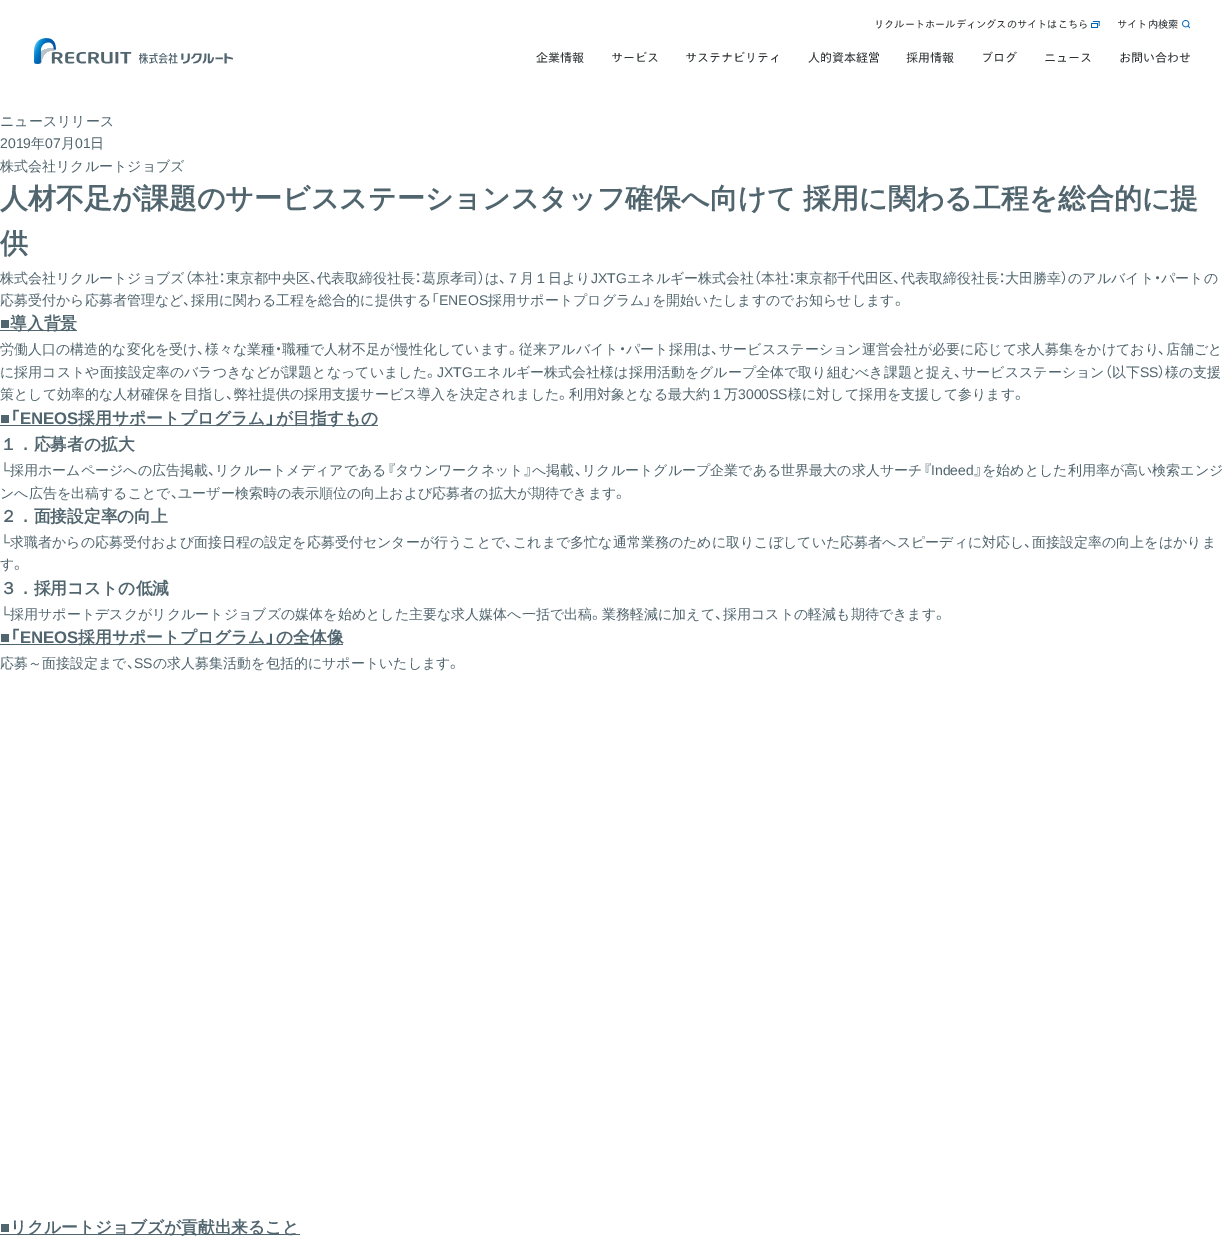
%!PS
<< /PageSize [1224 1249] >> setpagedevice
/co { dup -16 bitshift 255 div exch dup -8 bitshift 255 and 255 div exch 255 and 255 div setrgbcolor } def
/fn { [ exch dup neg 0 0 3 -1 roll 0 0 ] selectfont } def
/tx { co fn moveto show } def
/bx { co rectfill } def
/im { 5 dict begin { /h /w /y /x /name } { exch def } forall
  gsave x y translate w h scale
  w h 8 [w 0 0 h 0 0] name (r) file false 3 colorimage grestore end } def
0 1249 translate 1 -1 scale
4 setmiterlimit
0 0 1224 1249 16#FFFFFF bx
(media/1.raw) 34 38 199 26 im
(media/2.raw) 1091 21 9 7 im
(media/3.raw) 1182 20 8 9 im
0 330 77 1 16#51656F bx
0 425 378 1 16#51656F bx
0 644 343 1 16#51656F bx
0 1234 300 1 16#51656F bx
(リクルートホールディングスのサイトはこちら) 874 28 /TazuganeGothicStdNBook-Regular 10.2 16#2D3133 tx
(サイト内検索) 1117 28 /TazuganeGothicStdNBook-Regular 10.2 16#2D3133 tx
(企業情報) 536 62 /TazuganeGothicStdNBook-Regular 12 16#2D3133 tx
(サービス) 611 62 /TazuganeGothicStdNBook-Regular 12 16#2D3133 tx
(サステナビリティ) 685 62 /TazuganeGothicStdNBook-Regular 12 16#2D3133 tx
(人的資本経営) 808 62 /TazuganeGothicStdNBook-Regular 12 16#2D3133 tx
(採用情報) 906 62 /TazuganeGothicStdNBook-Regular 12 16#2D3133 tx
(ブログ) 981 62 /TazuganeGothicStdNBook-Regular 12 16#2D3133 tx
(ニュース) 1044 62 /TazuganeGothicStdNBook-Regular 12 16#2D3133 tx
(お問い合わせ) 1119 62 /TazuganeGothicStdNBook-Regular 12 16#2D3133 tx
(ニュースリリース) 0 126 /WenQuanYiZenHei-Medium 14 16#51656F tx
(2019) 0 148 /LiberationSans-Regular 14 16#51656F tx
(年) 31 148 /WenQuanYiZenHei-Medium 14 16#51656F tx
(07) 45 148 /LiberationSans-Regular 14 16#51656F tx
(月) 61 148 /WenQuanYiZenHei-Medium 14 16#51656F tx
(01) 75 148 /LiberationSans-Regular 14 16#51656F tx
(日) 90 148 /WenQuanYiZenHei-Medium 14 16#51656F tx
(株式会社リクルートジョブズ) 0 171 /WenQuanYiZenHei-Medium 14 16#51656F tx
(人材不足が課題のサービスステーションスタッフ確保へ向けて) 0 208 /WenQuanYiZenHei-Bold 28 16#51656F tx
(採用に関わる工程を総合的に提) 803 208 /WenQuanYiZenHei-Bold 28 16#51656F tx
(供) 0 253 /WenQuanYiZenHei-Bold 28 16#51656F tx
(株式会社リクルートジョブズ) 0 283 /WenQuanYiZenHei-Medium 14 16#51656F tx
(（) 185 283 /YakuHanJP-Regular 14 16#51656F tx
(本社) 191 283 /WenQuanYiZenHei-Medium 14 16#51656F tx
(：) 219 283 /YakuHanJP-Regular 14 16#51656F tx
(東京都中央区) 226 283 /WenQuanYiZenHei-Medium 14 16#51656F tx
(代表取締役社長) 317 283 /WenQuanYiZenHei-Medium 14 16#51656F tx
(：) 415 283 /YakuHanJP-Regular 14 16#51656F tx
(葛原孝司) 422 283 /WenQuanYiZenHei-Medium 14 16#51656F tx
(）) 478 283 /YakuHanJP-Regular 14 16#51656F tx
(は) 485 283 /WenQuanYiZenHei-Medium 14 16#51656F tx
(７月１日より) 506 283 /WenQuanYiZenHei-Medium 14 16#51656F tx
(JXTG) 591 283 /LiberationSans-Regular 14 16#51656F tx
(エネルギー株式会社) 627 283 /WenQuanYiZenHei-Medium 14 16#51656F tx
(（) 754 283 /YakuHanJP-Regular 14 16#51656F tx
(本社) 761 283 /WenQuanYiZenHei-Medium 14 16#51656F tx
(：) 789 283 /YakuHanJP-Regular 14 16#51656F tx
(東京都千代田区) 795 283 /WenQuanYiZenHei-Medium 14 16#51656F tx
(代表取締役社長) 901 283 /WenQuanYiZenHei-Medium 14 16#51656F tx
(：) 999 283 /YakuHanJP-Regular 14 16#51656F tx
(大田勝幸) 1005 283 /WenQuanYiZenHei-Medium 14 16#51656F tx
(）) 1061 283 /YakuHanJP-Regular 14 16#51656F tx
(のアルバイト) 1068 283 /WenQuanYiZenHei-Medium 14 16#51656F tx
(・) 1154 283 /YakuHanJP-Regular 14 16#51656F tx
(パートの) 1161 283 /WenQuanYiZenHei-Medium 14 16#51656F tx
(、) 310 283 /YakuHanJP-Regular 14 16#51656F tx
(、) 499 283 /YakuHanJP-Regular 14 16#51656F tx
(、) 893 283 /YakuHanJP-Regular 14 16#51656F tx
(応募受付から応募者管理など) 0 305 /WenQuanYiZenHei-Medium 14 16#51656F tx
(、) 183 305 /YakuHanJP-Regular 14 16#51656F tx
(採用に関わる工程を総合的に提供する) 191 305 /WenQuanYiZenHei-Medium 14 16#51656F tx
(「) 431 305 /YakuHanJP-Regular 14 16#51656F tx
(ENEOS) 439 305 /LiberationSans-Regular 14 16#51656F tx
(採用サポートプログラム) 488 305 /WenQuanYiZenHei-Medium 14 16#51656F tx
(」) 644 305 /YakuHanJP-Regular 14 16#51656F tx
(を開始いたしますのでお知らせします) 652 305 /WenQuanYiZenHei-Medium 14 16#51656F tx
(。) 895 305 /YakuHanJP-Regular 14 16#51656F tx
(■) 0 329 /LiberationSans-Bold 16.75 16#51656F tx
(導入背景) 10 329 /WenQuanYiZenHei-Bold 16.75 16#51656F tx
(労働人口の構造的な変化を受け) 0 354 /WenQuanYiZenHei-Medium 14 16#51656F tx
(様々な業種) 205 354 /WenQuanYiZenHei-Medium 14 16#51656F tx
(・) 275 354 /YakuHanJP-Regular 14 16#51656F tx
(職種で人材不足が慢性化しています) 282 354 /WenQuanYiZenHei-Medium 14 16#51656F tx
(従来アルバイト) 519 354 /WenQuanYiZenHei-Medium 14 16#51656F tx
(・) 619 354 /YakuHanJP-Regular 14 16#51656F tx
(パート採用は) 626 354 /WenQuanYiZenHei-Medium 14 16#51656F tx
(サービスステーション運営会社が必要に応じて求人募集をかけており) 719 354 /WenQuanYiZenHei-Medium 14 16#51656F tx
(店舗ごと) 1166 354 /WenQuanYiZenHei-Medium 14 16#51656F tx
(、) 197 354 /YakuHanJP-Regular 14 16#51656F tx
(。) 509 354 /YakuHanJP-Regular 14 16#51656F tx
(、) 711 354 /YakuHanJP-Regular 14 16#51656F tx
(、) 1158 354 /YakuHanJP-Regular 14 16#51656F tx
(に採用コストや面接設定率のバラつきなどが課題となっていました) 0 377 /WenQuanYiZenHei-Medium 14 16#51656F tx
(。) 427 377 /YakuHanJP-Regular 14 16#51656F tx
(JXTG) 437 377 /LiberationSans-Regular 14 16#51656F tx
(エネルギー株式会社様は採用活動をグループ全体で取り組むべき課題と捉え) 473 377 /WenQuanYiZenHei-Medium 14 16#51656F tx
(、) 954 377 /YakuHanJP-Regular 14 16#51656F tx
(サービスステーション) 962 377 /WenQuanYiZenHei-Medium 14 16#51656F tx
(（) 1105 377 /YakuHanJP-Regular 14 16#51656F tx
(以下) 1112 377 /WenQuanYiZenHei-Medium 14 16#51656F tx
(SS) 1140 377 /LiberationSans-Regular 14 16#51656F tx
(）) 1158 377 /YakuHanJP-Regular 14 16#51656F tx
(様の支援) 1165 377 /WenQuanYiZenHei-Medium 14 16#51656F tx
(策として効率的な人材確保を目指し) 0 399 /WenQuanYiZenHei-Medium 14 16#51656F tx
(、) 226 399 /YakuHanJP-Regular 14 16#51656F tx
(弊社提供の採用支援サービス導入を決定されました) 234 399 /WenQuanYiZenHei-Medium 14 16#51656F tx
(。) 559 399 /YakuHanJP-Regular 14 16#51656F tx
(利用対象となる最大約１万) 569 399 /WenQuanYiZenHei-Medium 14 16#51656F tx
(3000SS) 738 399 /LiberationSans-Regular 14 16#51656F tx
(様に対して採用を支援して参ります) 788 399 /WenQuanYiZenHei-Medium 14 16#51656F tx
(。) 1015 399 /YakuHanJP-Regular 14 16#51656F tx
(■) 0 424 /LiberationSans-Bold 16.75 16#51656F tx
(「) 10 424 /YakuHanJP-Bold 16.75 16#51656F tx
(ENEOS) 20 424 /LiberationSans-Bold 16.75 16#51656F tx
(採用サポートプログラム) 78 424 /WenQuanYiZenHei-Bold 16.75 16#51656F tx
(」) 266 424 /YakuHanJP-Bold 16.75 16#51656F tx
(が目指すもの) 276 424 /WenQuanYiZenHei-Bold 16.75 16#51656F tx
(１．応募者の拡大) 0 450 /WenQuanYiZenHei-Bold 16.75 16#51656F tx
(└) 0 475 /LiberationSans-Regular 14 16#51656F tx
(採用ホームページへの広告掲載) 10 475 /WenQuanYiZenHei-Medium 14 16#51656F tx
(、) 208 475 /YakuHanJP-Regular 14 16#51656F tx
(リクルートメディアである) 215 475 /WenQuanYiZenHei-Medium 14 16#51656F tx
(『) 387 475 /YakuHanJP-Regular 14 16#51656F tx
(タウンワークネット) 395 475 /WenQuanYiZenHei-Medium 14 16#51656F tx
(』) 524 475 /YakuHanJP-Regular 14 16#51656F tx
(へ掲載) 532 475 /WenQuanYiZenHei-Medium 14 16#51656F tx
(、) 575 475 /YakuHanJP-Regular 14 16#51656F tx
(リクルートグループ企業である世界最大の求人サーチ) 582 475 /WenQuanYiZenHei-Medium 14 16#51656F tx
(『) 923 475 /YakuHanJP-Regular 14 16#51656F tx
(Indeed) 931 475 /LiberationSans-Regular 14 16#51656F tx
(』) 974 475 /YakuHanJP-Regular 14 16#51656F tx
(を始めとした利用率が高い検索エンジ) 982 475 /WenQuanYiZenHei-Medium 14 16#51656F tx
(ンへ広告を出稿することで) 0 498 /WenQuanYiZenHei-Medium 14 16#51656F tx
(、) 171 498 /YakuHanJP-Regular 14 16#51656F tx
(ユーザー検索時の表示順位の向上および応募者の拡大が期待できます) 178 498 /WenQuanYiZenHei-Medium 14 16#51656F tx
(。) 616 498 /YakuHanJP-Regular 14 16#51656F tx
(２．面接設定率の向上) 0 522 /WenQuanYiZenHei-Bold 16.75 16#51656F tx
(└) 0 547 /LiberationSans-Regular 14 16#51656F tx
(求職者からの応募受付および面接日程の設定を応募受付センターが行うことで) 10 547 /WenQuanYiZenHei-Medium 14 16#51656F tx
(、) 505 547 /YakuHanJP-Regular 14 16#51656F tx
(これまで多忙な通常業務のために取りこぼしていた応募者へスピーディに対応し) 513 547 /WenQuanYiZenHei-Medium 14 16#51656F tx
(、) 1024 547 /YakuHanJP-Regular 14 16#51656F tx
(面接設定率の向上をはかりま) 1032 547 /WenQuanYiZenHei-Medium 14 16#51656F tx
(す) 0 569 /WenQuanYiZenHei-Medium 14 16#51656F tx
(。) 14 569 /YakuHanJP-Regular 14 16#51656F tx
(３．採用コストの低減) 0 594 /WenQuanYiZenHei-Bold 16.75 16#51656F tx
(└) 0 619 /LiberationSans-Regular 14 16#51656F tx
(採用サポートデスクがリクルートジョブズの媒体を始めとした主要な求人媒体へ一括で出稿) 10 619 /WenQuanYiZenHei-Medium 14 16#51656F tx
(。) 592 619 /YakuHanJP-Regular 14 16#51656F tx
(業務軽減に加えて) 602 619 /WenQuanYiZenHei-Medium 14 16#51656F tx
(、) 715 619 /YakuHanJP-Regular 14 16#51656F tx
(採用コストの軽減も期待できます) 723 619 /WenQuanYiZenHei-Medium 14 16#51656F tx
(。) 936 619 /YakuHanJP-Regular 14 16#51656F tx
(■) 0 643 /LiberationSans-Bold 16.75 16#51656F tx
(「) 10 643 /YakuHanJP-Bold 16.75 16#51656F tx
(ENEOS) 20 643 /LiberationSans-Bold 16.75 16#51656F tx
(採用サポートプログラム) 78 643 /WenQuanYiZenHei-Bold 16.75 16#51656F tx
(」) 266 643 /YakuHanJP-Bold 16.75 16#51656F tx
(の全体像) 276 643 /WenQuanYiZenHei-Bold 16.75 16#51656F tx
(応募～面接設定まで) 0 668 /WenQuanYiZenHei-Medium 14 16#51656F tx
(、) 127 668 /YakuHanJP-Regular 14 16#51656F tx
(SS) 134 668 /LiberationSans-Regular 14 16#51656F tx
(の求人募集活動を包括的にサポートいたします) 153 668 /WenQuanYiZenHei-Medium 14 16#51656F tx
(。) 450 668 /YakuHanJP-Regular 14 16#51656F tx
(■) 0 1233 /LiberationSans-Bold 16.75 16#51656F tx
(リクルートジョブズが貢献出来ること) 10 1233 /WenQuanYiZenHei-Bold 16.75 16#51656F tx
showpage
